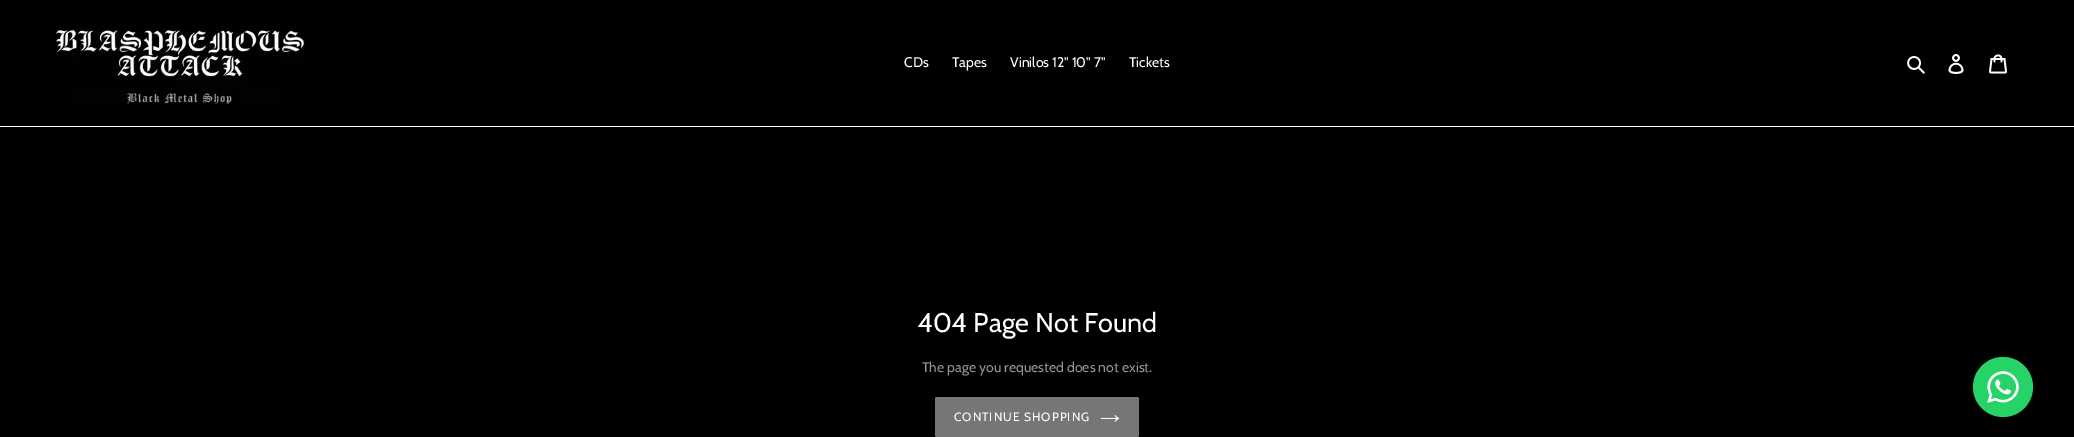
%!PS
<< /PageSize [2074 437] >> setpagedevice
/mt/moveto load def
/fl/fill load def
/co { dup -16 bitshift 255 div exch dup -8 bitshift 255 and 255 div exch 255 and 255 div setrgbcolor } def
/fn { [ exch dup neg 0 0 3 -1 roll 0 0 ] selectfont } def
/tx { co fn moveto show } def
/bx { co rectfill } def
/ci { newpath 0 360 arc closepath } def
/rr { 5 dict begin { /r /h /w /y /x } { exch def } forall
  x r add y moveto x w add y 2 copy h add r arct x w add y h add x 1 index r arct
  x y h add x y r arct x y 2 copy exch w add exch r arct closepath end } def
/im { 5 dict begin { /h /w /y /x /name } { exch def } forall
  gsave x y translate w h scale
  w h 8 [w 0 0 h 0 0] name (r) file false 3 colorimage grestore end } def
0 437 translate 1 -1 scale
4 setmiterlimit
0 0 2074 437 16#000000 bx
0 126 2074 1 16#FFFFFF bx
(media/1.raw) 55 29 250 75 im
(media/2.raw) 1907 56 18 18 im
(media/3.raw) 1948 54 16 20 im
(media/4.raw) 1989 54 18 20 im
16#767676 co
935 397 204 40 2 rr fl
(media/5.raw) 1100 414 20 8 im
16#25D366 co
2003 387 30 ci fl
(media/6.raw) 1987 371 32 32 im
(CDs) 904 67 /Cabin-Regular 14 16#FFFFFF tx
(Tapes) 952 67 /Cabin-Regular 14 16#FFFFFF tx
(Vinilos 12" 10" 7") 1010 67 /Cabin-Regular 14 16#FFFFFF tx
(Tickets) 1129 67 /Cabin-Regular 14 16#FFFFFF tx
(404 Page Not Found) 917 332 /Cabin-Regular 27 16#FFFFFF tx
(The page you requested does not exist.) 922 372 /Cabin-Regular 14 16#959595 tx
/Cabin-Regular 12 fn
16#FFFFFF co
954 421 mt 1 0 (CONTINUE SHOPPING) ashow
showpage
